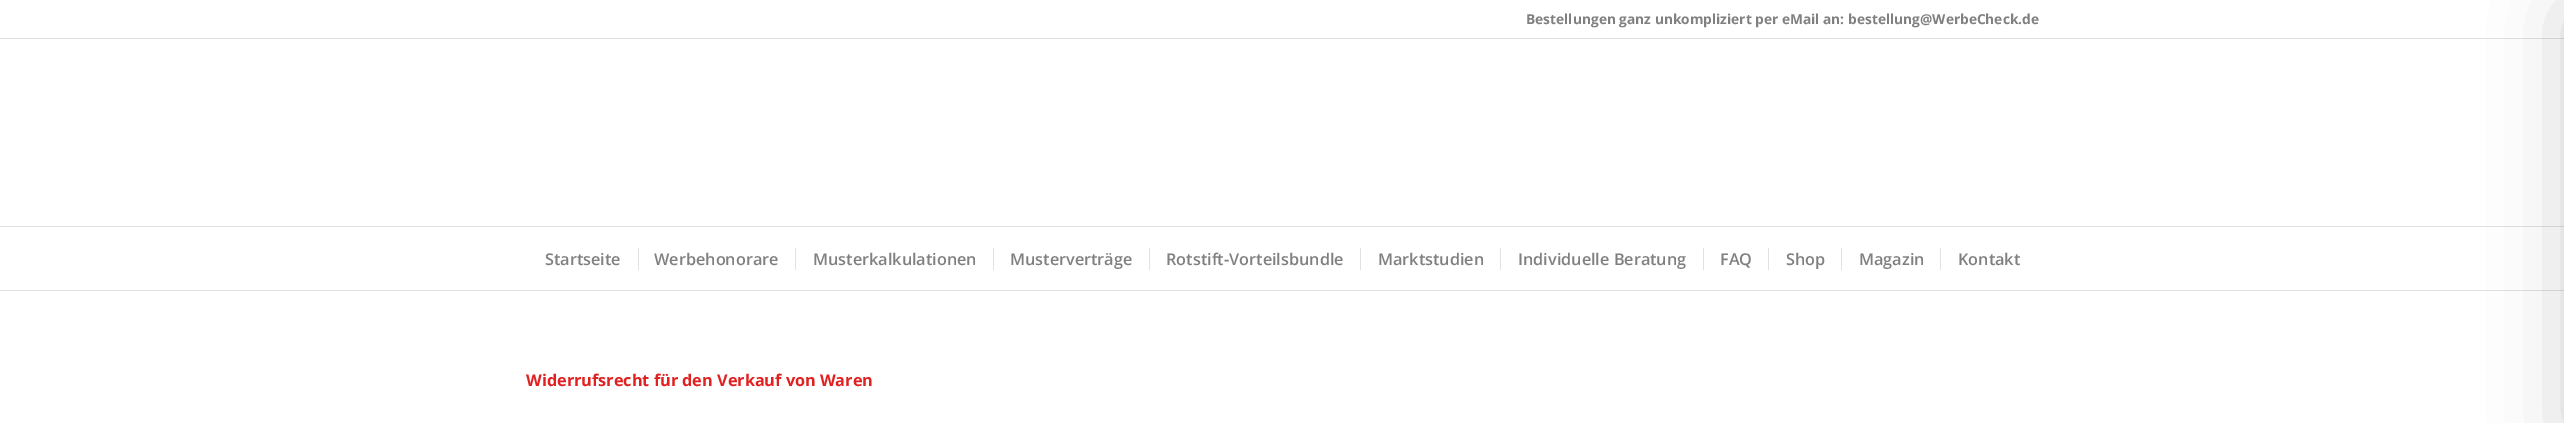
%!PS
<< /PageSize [2564 423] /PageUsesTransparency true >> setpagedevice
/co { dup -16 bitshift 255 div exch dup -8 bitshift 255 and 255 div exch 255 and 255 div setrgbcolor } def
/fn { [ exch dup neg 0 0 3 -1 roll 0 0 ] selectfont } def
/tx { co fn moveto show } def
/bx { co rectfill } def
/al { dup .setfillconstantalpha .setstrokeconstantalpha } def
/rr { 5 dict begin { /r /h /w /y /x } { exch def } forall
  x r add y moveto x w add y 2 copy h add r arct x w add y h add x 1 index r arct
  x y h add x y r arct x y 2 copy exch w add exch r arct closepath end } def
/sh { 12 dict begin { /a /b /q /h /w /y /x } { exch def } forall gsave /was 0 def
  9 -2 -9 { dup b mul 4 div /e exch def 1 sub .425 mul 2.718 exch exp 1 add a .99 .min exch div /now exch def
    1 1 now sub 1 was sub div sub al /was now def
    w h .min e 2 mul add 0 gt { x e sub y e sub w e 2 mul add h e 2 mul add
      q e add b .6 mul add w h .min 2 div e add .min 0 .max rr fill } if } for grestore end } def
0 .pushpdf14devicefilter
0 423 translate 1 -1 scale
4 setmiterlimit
0 0 2564 423 16#FFFFFF bx
0 38 2564 1 16#E1E1E1 bx
0 290 2564 1 16#E1E1E1 bx
0 226 2564 1 16#E1E1E1 bx
638 248 1 22 16#E1E1E1 bx
795 248 1 22 16#E1E1E1 bx
993 248 1 22 16#E1E1E1 bx
1149 248 1 22 16#E1E1E1 bx
1360 248 1 22 16#E1E1E1 bx
1500 248 1 22 16#E1E1E1 bx
1703 248 1 22 16#E1E1E1 bx
1768 248 1 22 16#E1E1E1 bx
1841 248 1 22 16#E1E1E1 bx
1940 248 1 22 16#E1E1E1 bx
16#000000 co
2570 13 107 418 0 37.5 .2 sh
(Bestellungen ganz unkompliziert per eMail an: bestellung@WerbeCheck.de) 1526 24 /OpenSans-Bold 13.75 16#808080 tx
(Startseite) 545 265 /OpenSans-SemiBold 16.25 16#808080 tx
(Werbehonorare) 654 265 /OpenSans-SemiBold 16.25 16#808080 tx
(Musterkalkulationen) 813 265 /OpenSans-SemiBold 16.25 16#808080 tx
(Musterverträge) 1010 265 /OpenSans-SemiBold 16.25 16#808080 tx
(Rotstift-Vorteilsbundle) 1166 265 /OpenSans-SemiBold 16.25 16#808080 tx
(Marktstudien) 1378 265 /OpenSans-SemiBold 16.25 16#808080 tx
(Individuelle Beratung) 1518 265 /OpenSans-SemiBold 16.25 16#808080 tx
(FAQ) 1720 265 /OpenSans-SemiBold 16.25 16#808080 tx
(Shop) 1786 265 /OpenSans-SemiBold 16.25 16#808080 tx
(Magazin) 1859 265 /OpenSans-SemiBold 16.25 16#808080 tx
(Kontakt) 1958 265 /OpenSans-SemiBold 16.25 16#808080 tx
(Widerrufsrecht für den Verkauf von Waren) 526 386 /OpenSans-Bold 16.25 16#E12020 tx
.poppdf14devicefilter showpage
